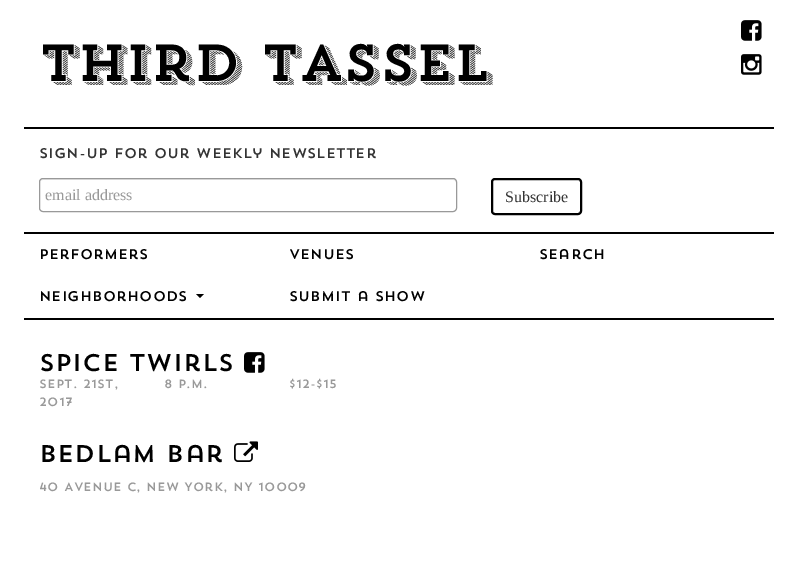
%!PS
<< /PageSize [798 584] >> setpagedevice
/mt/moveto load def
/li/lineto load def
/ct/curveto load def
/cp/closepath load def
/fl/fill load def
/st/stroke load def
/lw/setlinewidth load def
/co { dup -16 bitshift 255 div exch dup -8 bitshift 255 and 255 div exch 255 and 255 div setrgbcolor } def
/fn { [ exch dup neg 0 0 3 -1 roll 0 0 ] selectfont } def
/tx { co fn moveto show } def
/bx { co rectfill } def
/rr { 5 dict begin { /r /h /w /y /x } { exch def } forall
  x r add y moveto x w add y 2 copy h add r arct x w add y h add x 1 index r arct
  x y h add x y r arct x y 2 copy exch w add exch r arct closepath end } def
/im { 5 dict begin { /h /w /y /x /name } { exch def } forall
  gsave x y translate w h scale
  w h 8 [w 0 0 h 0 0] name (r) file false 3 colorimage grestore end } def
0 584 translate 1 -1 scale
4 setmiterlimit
0 0 798 584 16#FFFFFF bx
(media/1.raw) 741 20 21 21 im
(media/2.raw) 741 54 21 21 im
24 127 750 2 16#000000 bx
16#ECECEC co
43 180 mt 453 180 li 455 180 456 181 456 183 ct 456 181 455 179 453 179 ct 43 179 li 41 179 40 181 40 183 ct 40 181 41 180 43 180 ct cp fl
16#999999 co
39.5 178.5 417 33 3.5 rr st
16#000000 co
2 lw
492 179 89 35 3 rr st
24 232 750 2 16#000000 bx
24 318 750 2 16#000000 bx
196 294 mt 204 294 li 200 298 li cp fl
(media/1.raw) 244 352 21 21 im
(media/3.raw) 234 441 24 21 im
(Third Tassel) 39 81 /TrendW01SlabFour-Regular 52 16#000000 tx
(Sign-up for our Weekly Newsletter) 39 158 /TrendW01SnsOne-Regular 14 16#333333 tx
(email address) 45 200 /LiberationSerif-Regular 16 16#999999 tx
(Subscribe) 505 202 /LiberationSerif-Regular 16 16#333333 tx
(Performers) 39 259 /TrendW01SnsOne-Regular 14 16#000000 tx
(Venues) 289 259 /TrendW01SnsOne-Regular 14 16#000000 tx
(Search) 539 259 /TrendW01SnsOne-Regular 14 16#000000 tx
(Neighborhoods) 39 301 /TrendW01SnsOne-Regular 14 16#000000 tx
(Submit a Show) 289 301 /TrendW01SnsOne-Regular 14 16#000000 tx
(Spice Twirls) 39 371 /TrendW01SnsOne-Regular 24 16#000000 tx
(Sept. 21st,) 39 388 /TrendW01SnsOne-Regular 12 16#999999 tx
(2017) 39 406 /TrendW01SnsOne-Regular 12 16#999999 tx
(8 p.m.) 164 388 /TrendW01SnsOne-Regular 12 16#999999 tx
($12-$15) 289 388 /TrendW01SnsOne-Regular 12 16#999999 tx
(Bedlam Bar) 39 462 /TrendW01SnsOne-Regular 24 16#000000 tx
(40 Avenue C, New York, NY 10009) 39 491 /TrendW01SnsOne-Regular 12 16#999999 tx
showpage
